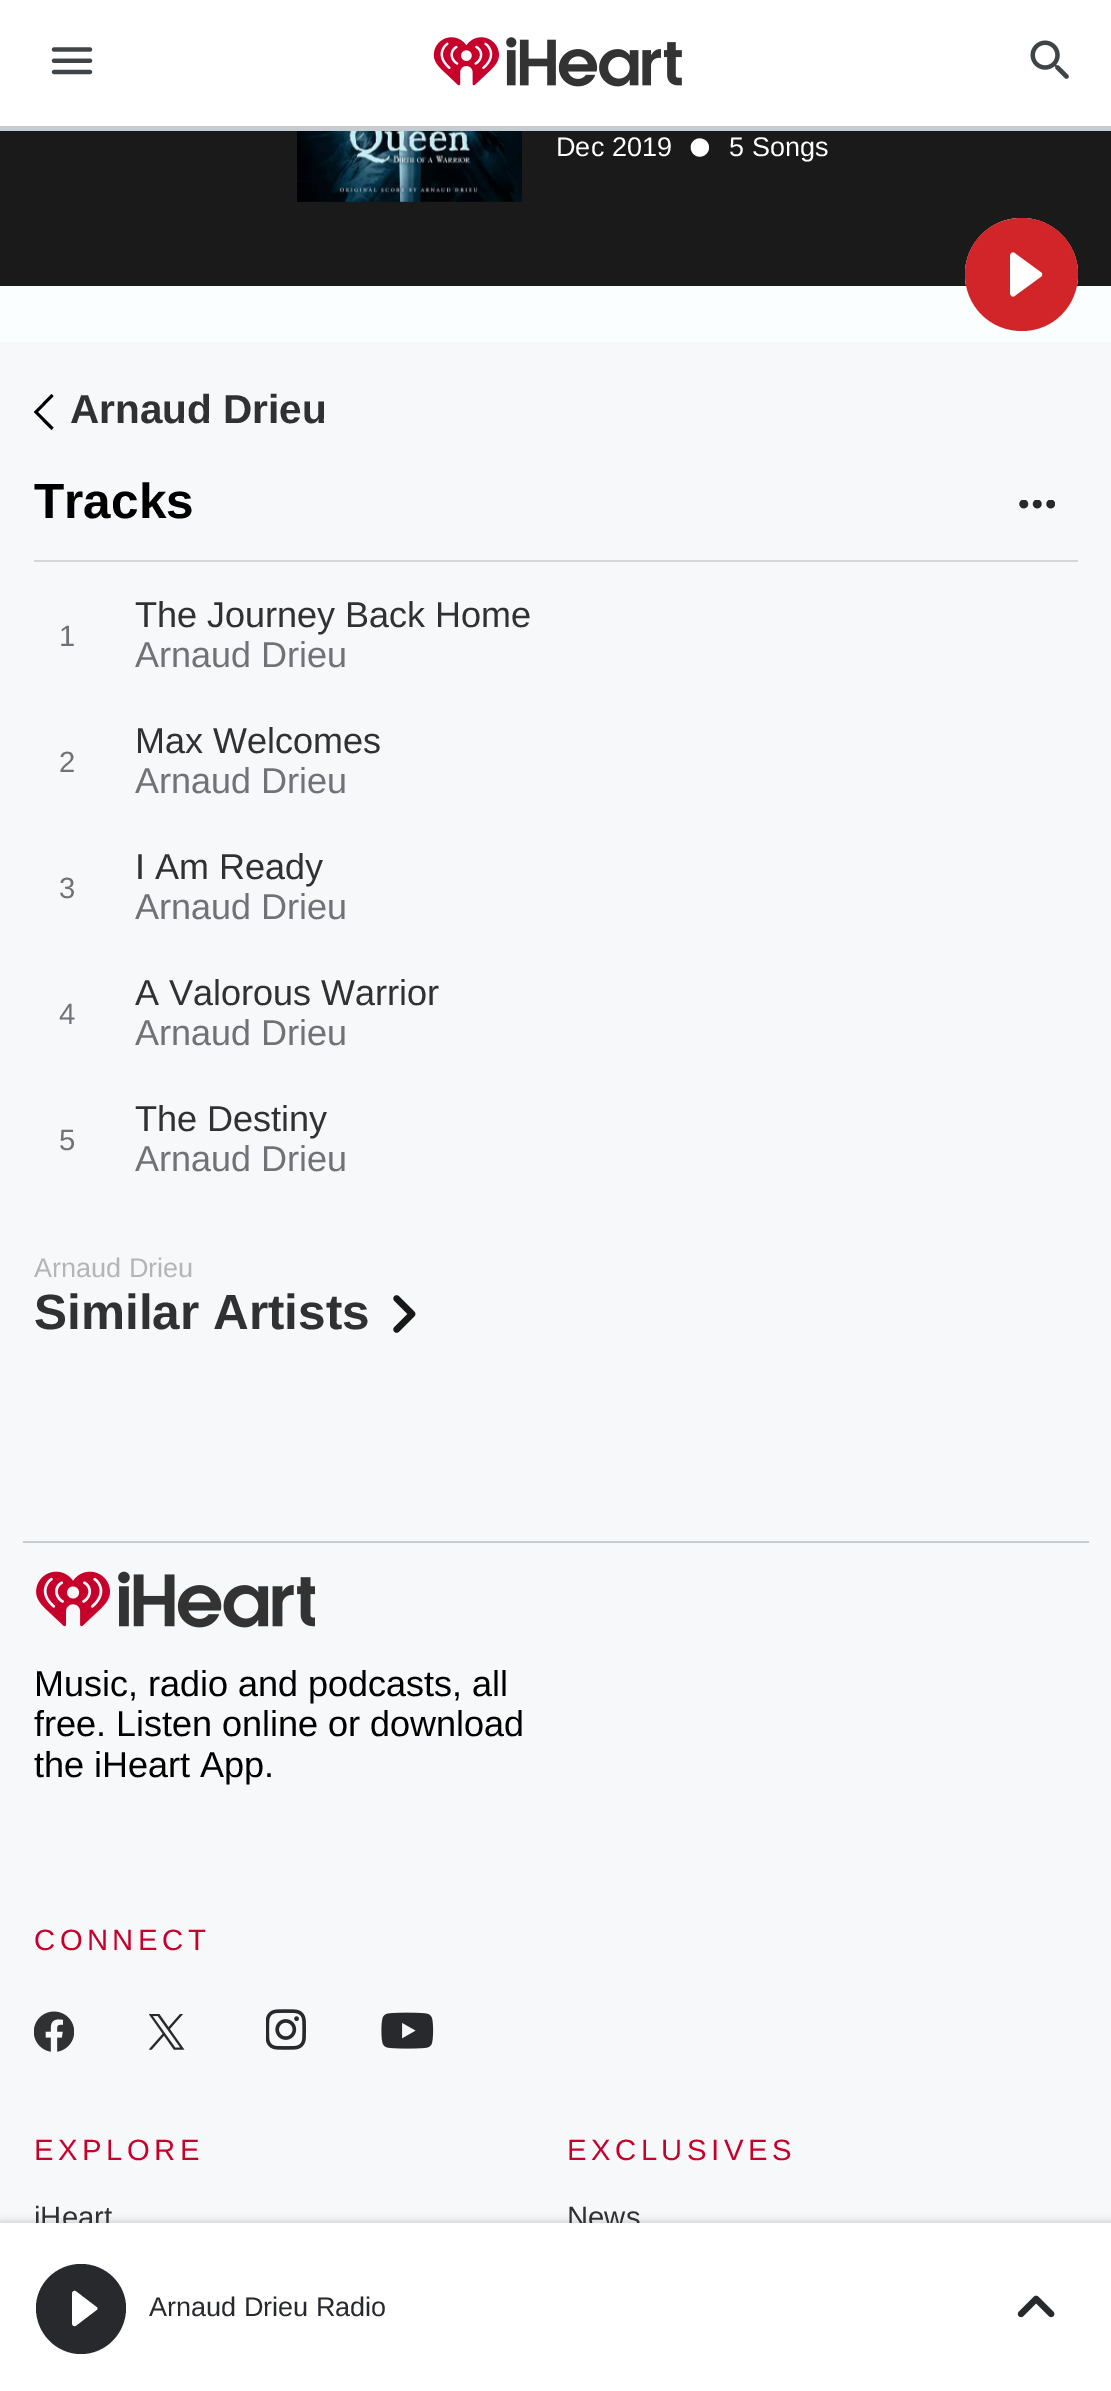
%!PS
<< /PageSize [1111 2391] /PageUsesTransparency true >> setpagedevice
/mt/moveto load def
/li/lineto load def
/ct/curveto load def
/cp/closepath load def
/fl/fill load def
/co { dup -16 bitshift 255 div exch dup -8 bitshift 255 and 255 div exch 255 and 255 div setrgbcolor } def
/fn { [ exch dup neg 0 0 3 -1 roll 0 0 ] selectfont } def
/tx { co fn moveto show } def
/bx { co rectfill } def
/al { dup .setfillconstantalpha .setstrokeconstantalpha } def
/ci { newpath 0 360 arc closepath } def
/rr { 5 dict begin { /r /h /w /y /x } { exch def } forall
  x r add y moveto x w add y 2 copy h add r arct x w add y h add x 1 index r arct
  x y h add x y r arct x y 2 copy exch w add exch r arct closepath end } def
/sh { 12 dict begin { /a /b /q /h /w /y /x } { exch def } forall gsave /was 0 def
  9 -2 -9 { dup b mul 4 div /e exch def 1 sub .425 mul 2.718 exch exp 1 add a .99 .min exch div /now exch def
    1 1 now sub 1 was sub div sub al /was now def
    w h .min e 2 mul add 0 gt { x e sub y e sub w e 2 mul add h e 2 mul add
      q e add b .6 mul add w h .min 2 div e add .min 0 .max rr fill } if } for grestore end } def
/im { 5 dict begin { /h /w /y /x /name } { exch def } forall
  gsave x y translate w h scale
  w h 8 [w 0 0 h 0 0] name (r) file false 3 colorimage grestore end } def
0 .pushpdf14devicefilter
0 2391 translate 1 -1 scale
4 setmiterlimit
0 0 1111 2391 16#FBFEFE bx
0 0 1111 126 16#FFFFFF bx
0 126 1111 5 16#C5CDD2 bx
(media/1.raw) 51 47 42 28 im
(media/2.raw) 433 37 249 50 im
(media/3.raw) 1030 40 39 39 im
0 131 1111 155 16#1A1A1A bx
(media/4.raw) 297 131 225 71 im
16#FFFFFF co
1021.5 274.5 56.5 ci fl
16#D2252A co
1022 218 mt 990 218 965 243 965 274 ct 965 306 990 331 1022 331 ct 1053 331 1078 306 1078 274 ct 1078 243 1053 218 1022 218 ct cp 1010 294 mt 1010 255 li 1010 253 1013 251 1015 253 ct 1041 272 li 1043 273 1043 276 1041 277 ct 1015 296 li 1013 298 1010 296 1010 294 ct cp fl
0 342 1111 1881 16#F6F8F9 bx
16#000000 co
51.5 394 mt 34 412 li 51.5 430 li 53.5 427.5 li 38 412 li 53.5 396 li cp fl
34 560 1044 2 16#D7D7D7 bx
(media/5.raw) 1019 500 36 9 im
(media/6.raw) 393 1295 23 38 im
23 1541 1066 2 16#C5CDD2 bx
(media/7.raw) 36 1571 279 57 im
(media/8.raw) 34 2011 40 41 im
(media/9.raw) 149 2014 36 36 im
(media/10.raw) 266 2009 40 41 im
(media/11.raw) 381 2012 53 37 im
16#000000 co
0 2221 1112 169 0 3.5 .15 sh
(Dec 2019) 556 156 /LiberationSans-Regular 27 16#FFFFFF tx
(•) 688 170 /LiberationSans-Regular 68 16#FFFFFF tx
(5 Songs) 729 156 /LiberationSans-Regular 27 16#FFFFFF tx
(Arnaud Drieu) 70 423 /LiberationSans-Bold 40.5 16#2F3133 tx
(Tracks) 34 518 /LiberationSans-Bold 49.5 16#000000 tx
(1) 59 646 /LiberationSans-Regular 29.25 16#717277 tx
(The Journey Back Home) 135 627 /LiberationSans-Regular 36 16#2F3133 tx
(Arnaud Drieu) 135 667 /LiberationSans-Regular 36 16#717277 tx
(2) 59 772 /LiberationSans-Regular 29.25 16#717277 tx
(Max Welcomes) 135 753 /LiberationSans-Regular 36 16#2F3133 tx
(Arnaud Drieu) 135 793 /LiberationSans-Regular 36 16#717277 tx
(3) 59 898 /LiberationSans-Regular 29.25 16#717277 tx
(I Am Ready) 135 879 /LiberationSans-Regular 36 16#2F3133 tx
(Arnaud Drieu) 135 919 /LiberationSans-Regular 36 16#717277 tx
(4) 59 1024 /LiberationSans-Regular 29.25 16#717277 tx
(A Valorous Warrior) 135 1005 /LiberationSans-Regular 36 16#2F3133 tx
(Arnaud Drieu) 135 1045 /LiberationSans-Regular 36 16#717277 tx
(5) 59 1150 /LiberationSans-Regular 29.25 16#717277 tx
(The Destiny) 135 1131 /LiberationSans-Regular 36 16#2F3133 tx
(Arnaud Drieu) 135 1171 /LiberationSans-Regular 36 16#717277 tx
(Arnaud Drieu) 34 1277 /LiberationSans-Regular 27 16#B4B5B8 tx
(Similar Artists) 34 1329 /LiberationSans-Bold 49.5 16#2F3133 tx
(Music, radio and podcasts, all) 34 1696 /LiberationSans-Regular 36 16#000000 tx
(free. Listen online or download) 34 1736 /LiberationSans-Regular 36 16#000000 tx
(the iHeart App.) 34 1777 /LiberationSans-Regular 36 16#000000 tx
/LiberationSans-Regular 29.25 fn
16#C6002B co
34 1950 mt 4.5 0 (CONNECT) ashow
34 2160 mt 4.5 0 (EXPLORE) ashow
(iHeart) 34 2227 /LiberationSans-Regular 29.25 16#2F3133 tx
16#C6002B co
567 2160 mt 4.5 0 (EXCLUSIVES) ashow
(News) 567 2227 /LiberationSans-Regular 29.25 16#2F3133 tx
0 2223 1111 168 16#FFFFFF bx
16#27292D co
81 2264 mt 56 2264 36 2284 36 2308 ct 36 2333 56 2354 81 2354 ct 106 2354 126 2333 126 2308 ct 126 2284 106 2264 81 2264 ct cp 72 2324 mt 72 2293 li 72 2291 74 2290 76 2291 ct 97 2307 li 98 2308 98 2309 97 2310 ct 76 2326 li 74 2327 72 2326 72 2324 ct cp fl
(Arnaud Drieu Radio) 149 2316 /LiberationSans-Regular 27 16#27292D tx
(media/12.raw) 1017 2295 38 23 im
.poppdf14devicefilter showpage
